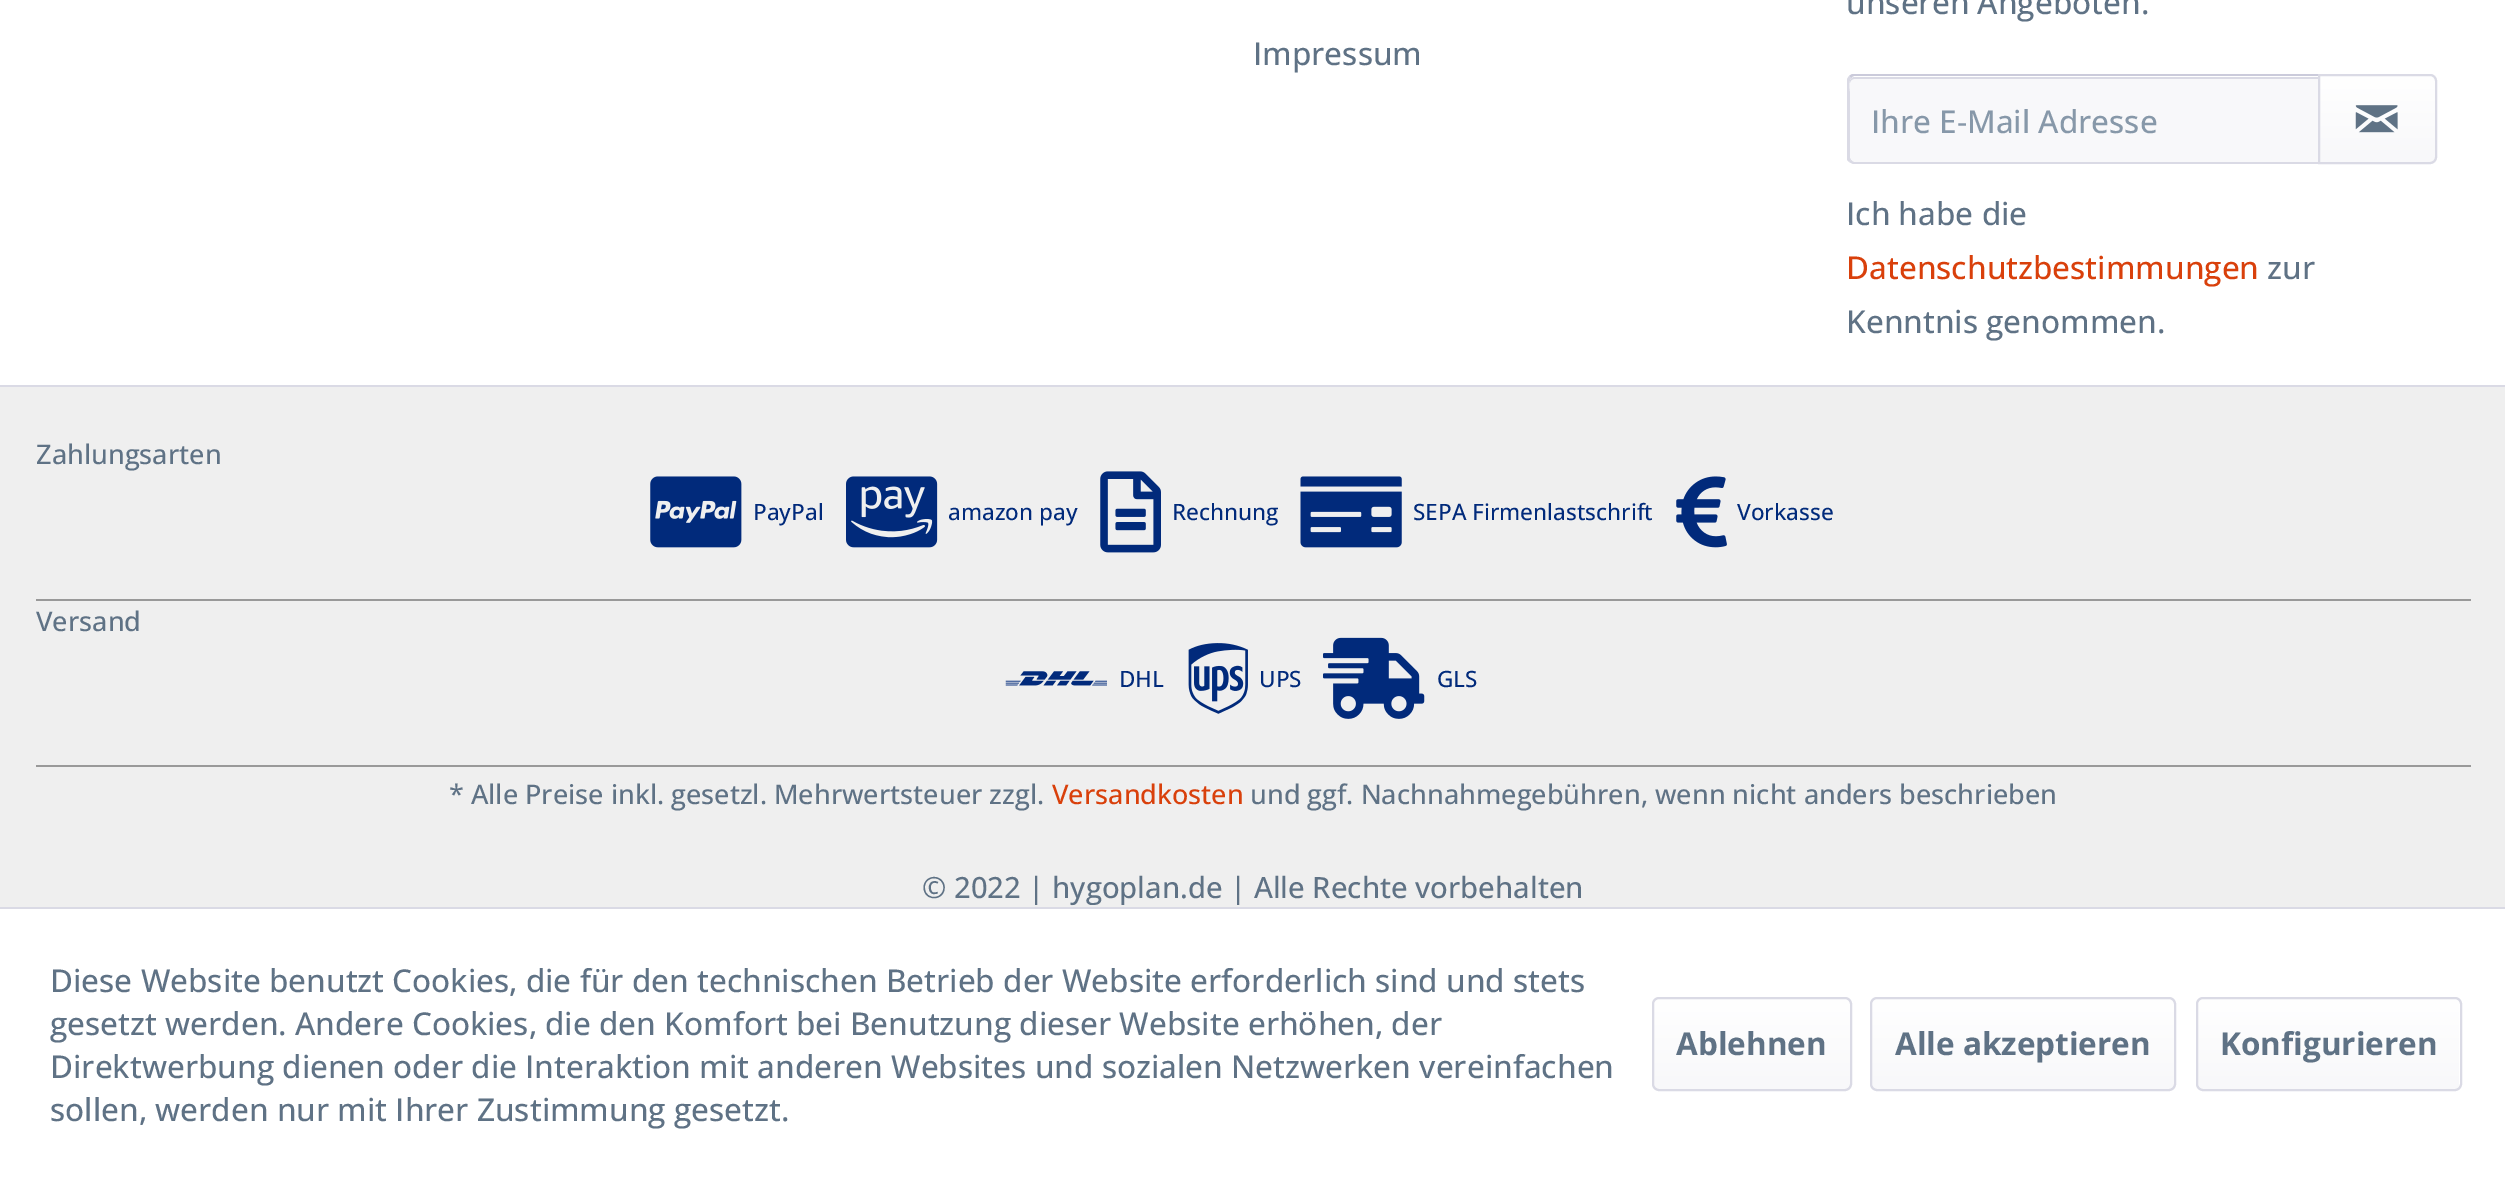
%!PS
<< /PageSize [2505 1177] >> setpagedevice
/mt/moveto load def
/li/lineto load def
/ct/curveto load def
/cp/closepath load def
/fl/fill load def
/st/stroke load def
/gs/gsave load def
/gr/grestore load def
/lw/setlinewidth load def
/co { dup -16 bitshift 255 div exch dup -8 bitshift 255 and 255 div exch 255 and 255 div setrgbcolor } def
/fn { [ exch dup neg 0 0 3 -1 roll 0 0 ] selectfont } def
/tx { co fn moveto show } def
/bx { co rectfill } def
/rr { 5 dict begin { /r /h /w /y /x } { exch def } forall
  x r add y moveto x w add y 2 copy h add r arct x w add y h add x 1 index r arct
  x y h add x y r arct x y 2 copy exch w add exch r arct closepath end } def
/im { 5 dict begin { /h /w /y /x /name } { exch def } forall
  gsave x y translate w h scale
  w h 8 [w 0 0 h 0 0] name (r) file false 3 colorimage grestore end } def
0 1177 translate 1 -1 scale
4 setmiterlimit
0 0 2505 1177 16#FFFFFF bx
0 385 2505 2 16#DADAE5 bx
16#F8F8FA co
1855 77 mt 2318 77 li 2318 162 li 1855 162 li 1852 162 1850 160 1850 157 ct 1850 82 li 1850 79 1852 77 1855 77 ct cp fl
16#DADAE5 co
1854 79 mt 2318 79 li 2318 77 li 1855 77 li 1852 77 1850 79 1850 82 ct 1850 83 li 1850 81 1852 79 1854 79 ct cp fl
16#CBCBDB co
1854 76 mt 1853 76 1852 77 1851 78 ct 1849 76 li 1852 74 li 2320 74 li 2318 76 li cp fl
16#DADAE5 co
2320 164 mt 1853 164 li 1849 162 li 1851 160 li 1852 161 1853 162 1854 162 ct 2318 162 li cp fl
1847 79 mt 1849 76 li 1851 78 li 1848 82 1850 92 1850 94 ct 1850 158 li 1851 160 li 1849 162 li 1847 160 li cp fl
gs 2320 77 mt 2430 77 li 2433 77 2435 79 2435 82 ct 2435 157 li 2435 160 2433 162 2430 162 ct 2320 162 li cp clip newpath
<< /ShadingType 2 /ColorSpace /DeviceRGB /Coords [2377 77 2377 162] /Extend [true true] /Function << /FunctionType 2 /Domain [0 1] /C0 [1 1 1] /C1 [.973 .973 .98] /N 1 >> >> shfill gr
2 lw
2319 75 mt 2430 75 li 2433.5 75 2436 77.5 2436 81 ct 2436 157 li 2436 160.5 2433.5 163 2430 163 ct 2319 163 li cp st
(media/1.raw) 2355 105 43 28 im
0 387 2505 520 16#EFEFEF bx
36 599 2435 2 16#999999 bx
(media/2.raw) 650 476 92 72 im
(media/3.raw) 846 476 92 72 im
(media/4.raw) 1100 471 61 82 im
(media/5.raw) 1300 476 102 72 im
(media/6.raw) 1676 476 51 72 im
36 765 2435 2 16#999999 bx
(media/7.raw) 1005 671 102 15 im
(media/8.raw) 1188 643 60 71 im
(media/9.raw) 1323 637 102 82 im
0 907 2505 2 16#DADAE5 bx
gs 1654 999 196 90 5 rr clip newpath
<< /ShadingType 2 /ColorSpace /DeviceRGB /Coords [1752 999 1752 1089] /Extend [true true] /Function << /FunctionType 2 /Domain [0 1] /C0 [1 1 1] /C1 [.973 .973 .98] /N 1 >> >> shfill gr
1653 998 198 92 6 rr st
gs 1872 999 302 90 5 rr clip newpath
<< /ShadingType 2 /ColorSpace /DeviceRGB /Coords [2023 999 2023 1089] /Extend [true true] /Function << /FunctionType 2 /Domain [0 1] /C0 [1 1 1] /C1 [.973 .973 .98] /N 1 >> >> shfill gr
1871 998 304 92 6 rr st
gs 2198 999 261 90 5 rr clip newpath
<< /ShadingType 2 /ColorSpace /DeviceRGB /Coords [2329 999 2329 1089] /Extend [true true] /Function << /FunctionType 2 /Domain [0 1] /C0 [1 1 1] /C1 [.973 .973 .98] /N 1 >> >> shfill gr
2197 998 264 92 6 rr st
(Impressum) 1253 65 /OpenSans-Medium 31.5 16#5F7285 tx
(unseren Angeboten.) 1846 14 /OpenSans-Medium 31.5 16#5F7285 tx
(Ihre E-Mail Adresse) 1871 133 /OpenSans-Medium 31.5 16#8798A9 tx
(Ich habe die) 1846 225 /OpenSans-Medium 31.5 16#5F7285 tx
(Datenschutzbestimmungen) 1846 279 /OpenSans-Medium 31.5 16#D9400B tx
(zur) 2267 279 /OpenSans-Medium 31.5 16#5F7285 tx
(Kenntnis genommen.) 1846 333 /OpenSans-Medium 31.5 16#5F7285 tx
(Zahlungsarten) 36 464 /OpenSans-Medium 27 16#5F7285 tx
(PayPal) 753 520 /OpenSans-Medium 22.5 16#012A7B tx
(amazon pay) 948 520 /OpenSans-Medium 22.5 16#012A7B tx
(Rechnung) 1172 520 /OpenSans-Medium 22.5 16#012A7B tx
(SEPA Firmenlastschrift) 1413 520 /OpenSans-Medium 22.5 16#012A7B tx
(Vorkasse) 1737 520 /OpenSans-Medium 22.5 16#012A7B tx
(Versand) 36 631 /OpenSans-Medium 27 16#5F7285 tx
(DHL) 1119 687 /OpenSans-Medium 22.5 16#012A7B tx
(UPS) 1259 687 /OpenSans-Medium 22.5 16#012A7B tx
(GLS) 1437 687 /OpenSans-Medium 22.5 16#012A7B tx
(* Alle Preise inkl. gesetzl. Mehrwertsteuer zzgl.) 449 804 /OpenSans-Medium 27 16#5F7285 tx
(Versandkosten) 1052 804 /OpenSans-Medium 27 16#D9400B tx
(und ggf. Nachnahmegebühren, wenn nicht anders beschrieben) 1250 804 /OpenSans-Medium 27 16#5F7285 tx
(© 2022 | hygoplan.de | Alle Rechte vorbehalten) 922 898 /OpenSans-Medium 29.25 16#5F7285 tx
(Diese Website benutzt Cookies, die für den technischen Betrieb der Website erforderlich sind und stets) 50 992 /OpenSans-Medium 31.5 16#5F7285 tx
(gesetzt werden. Andere Cookies, die den Komfort bei Benutzung dieser Website erhöhen, der) 50 1035 /OpenSans-Medium 31.5 16#5F7285 tx
(Direktwerbung dienen oder die Interaktion mit anderen Websites und sozialen Netzwerken vereinfachen) 50 1078 /OpenSans-Medium 31.5 16#5F7285 tx
(sollen, werden nur mit Ihrer Zustimmung gesetzt.) 50 1121 /OpenSans-Medium 31.5 16#5F7285 tx
(Ablehnen) 1676 1055 /OpenSans-Bold 31.5 16#5F7285 tx
(Alle akzeptieren) 1895 1055 /OpenSans-Bold 31.5 16#5F7285 tx
(Konfigurieren) 2220 1055 /OpenSans-Bold 31.5 16#5F7285 tx
showpage
